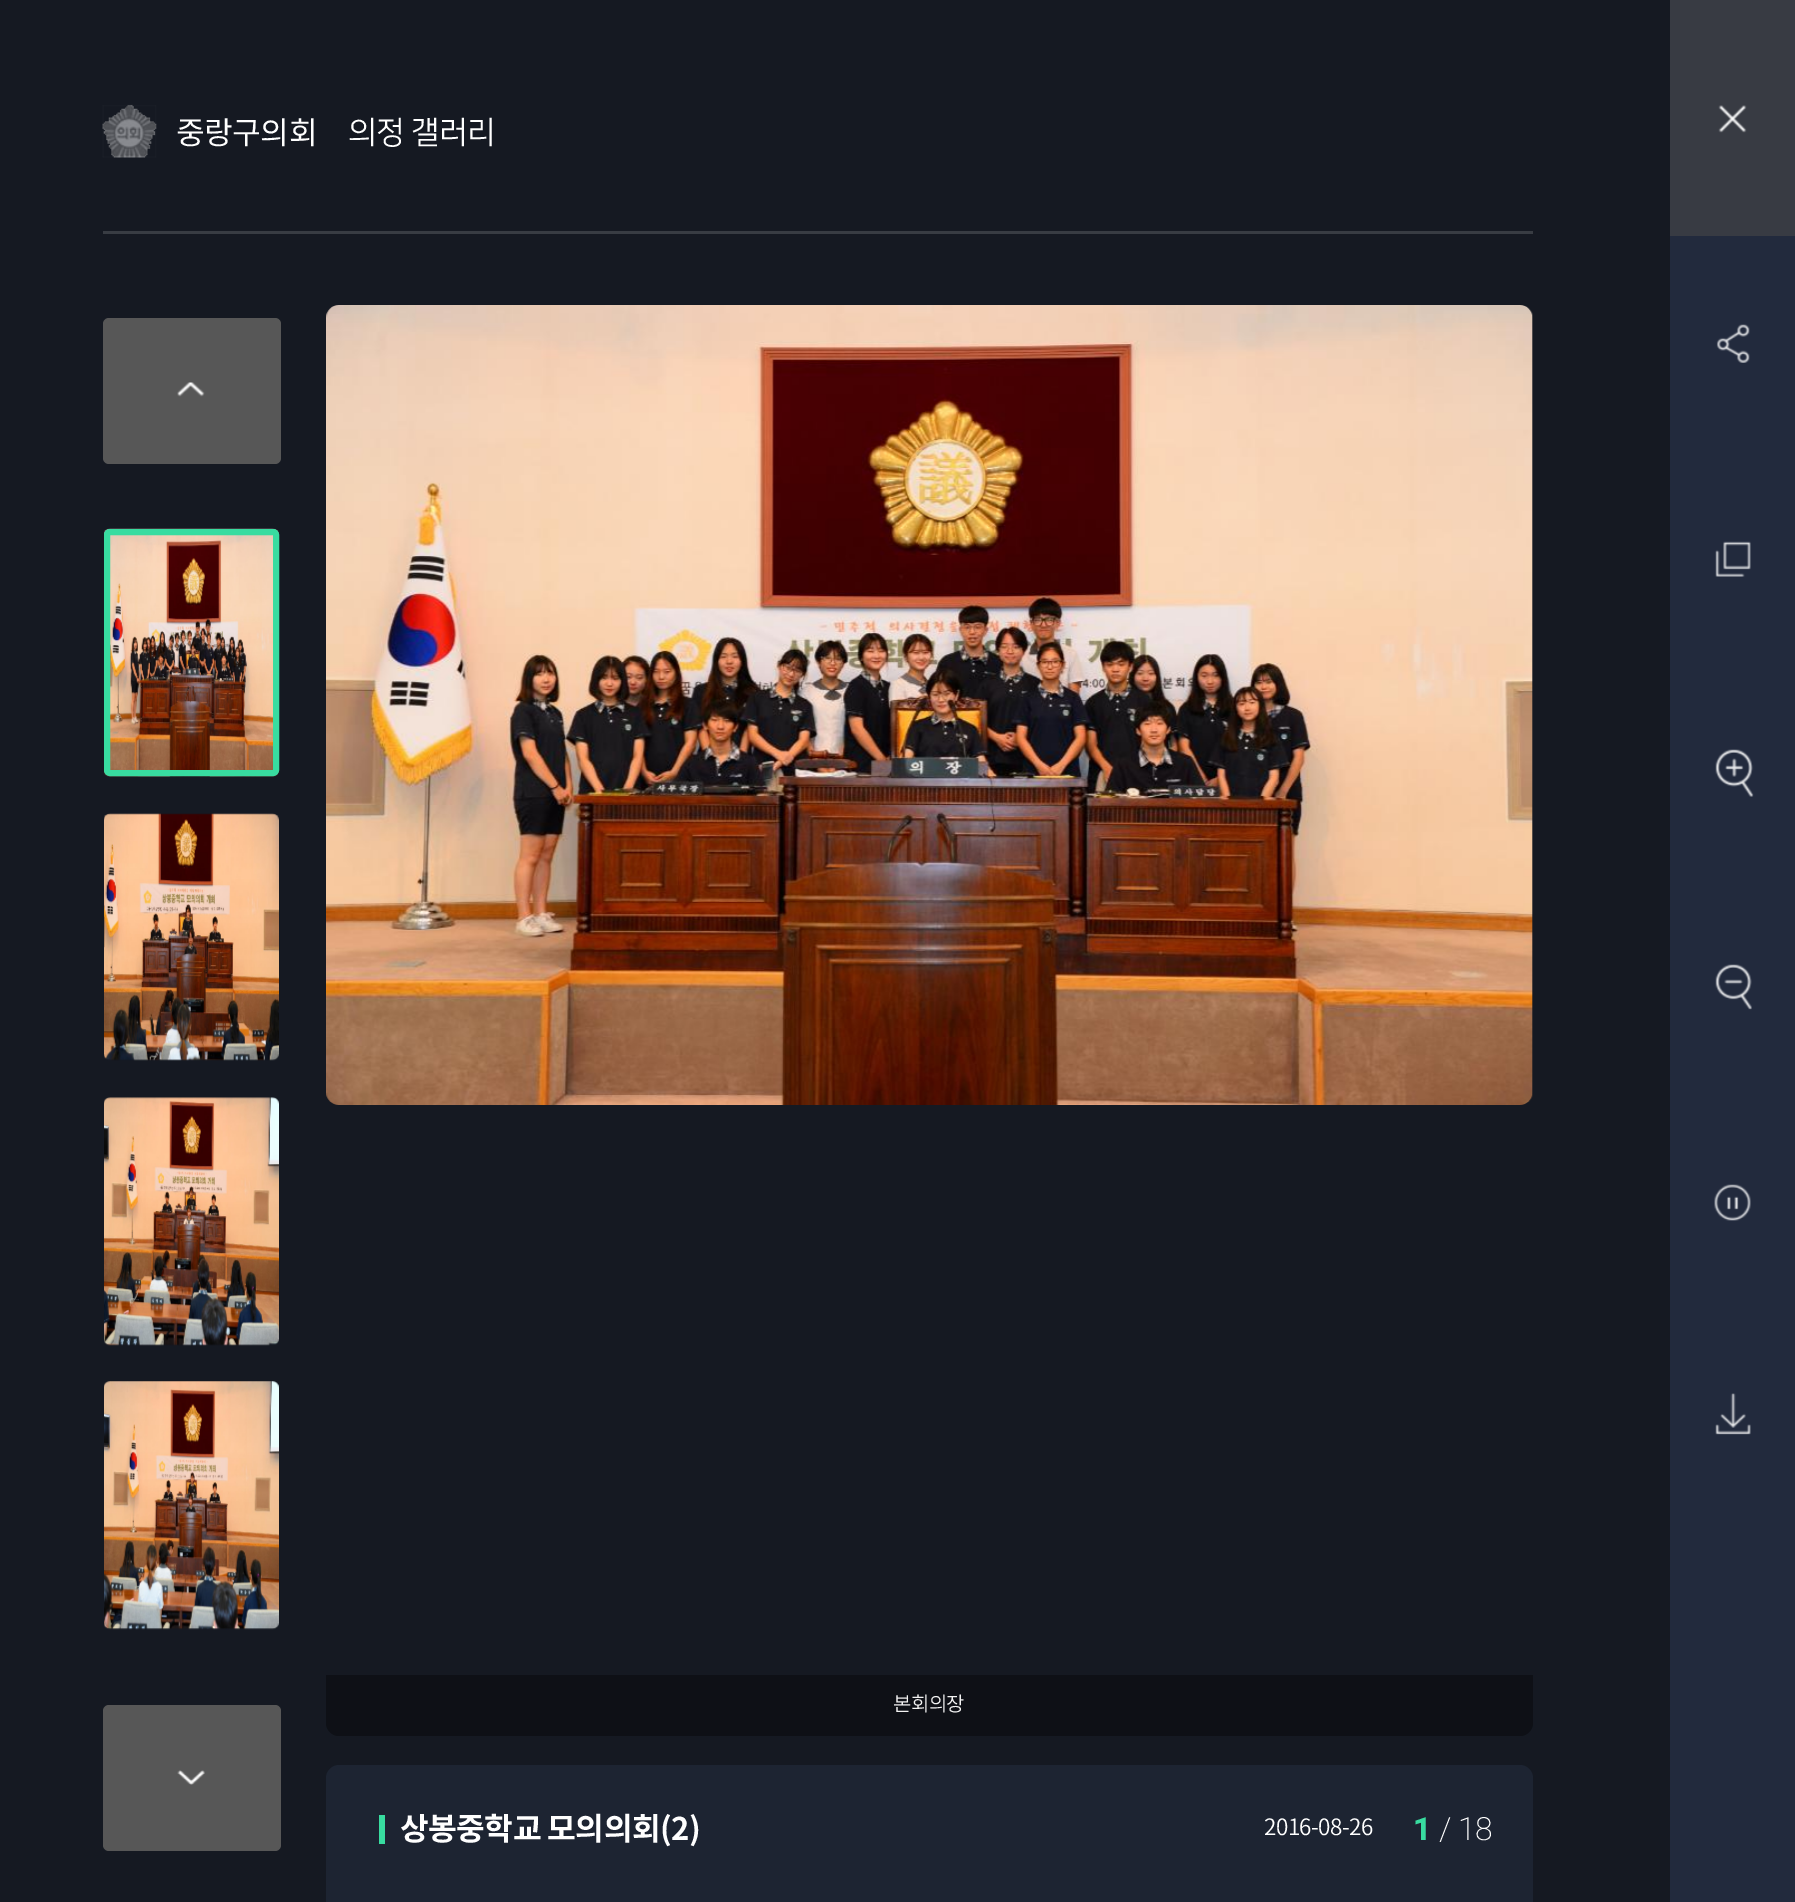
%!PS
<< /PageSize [1795 1902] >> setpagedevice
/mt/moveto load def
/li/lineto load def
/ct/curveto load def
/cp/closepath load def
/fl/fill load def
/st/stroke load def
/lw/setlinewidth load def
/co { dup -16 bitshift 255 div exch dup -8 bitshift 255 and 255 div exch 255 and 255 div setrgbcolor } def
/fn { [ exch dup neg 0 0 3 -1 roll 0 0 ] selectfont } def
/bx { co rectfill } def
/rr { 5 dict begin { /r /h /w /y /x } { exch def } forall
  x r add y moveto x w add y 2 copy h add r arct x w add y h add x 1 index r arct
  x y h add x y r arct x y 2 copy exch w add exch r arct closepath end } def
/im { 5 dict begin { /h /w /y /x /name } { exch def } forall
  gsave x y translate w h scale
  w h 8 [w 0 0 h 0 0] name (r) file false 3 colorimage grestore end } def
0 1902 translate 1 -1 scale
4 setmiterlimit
0 0 1795 1902 16#151922 bx
103 231 1430 3 16#383C43 bx
(media/1.raw) 102 104 55 54 im
1670 236 125 1666 16#222A3D bx
1670 0 125 236 16#383B43 bx
(media/2.raw) 1718 105 29 28 im
(media/3.raw) 1716 324 34 39 im
(media/4.raw) 1715 541 36 36 im
(media/5.raw) 1715 749 39 48 im
(media/6.raw) 1715 964 37 46 im
(media/7.raw) 1714 1184 37 37 im
(media/8.raw) 1715 1393 36 42 im
16#575757 co
103 318 178 146 6 rr fl
(media/9.raw) 177 382 28 15 im
(media/10.raw) 104 528 175 249 im
16#38DCA0 co
6 lw
107 532 169 241 3 rr st
(media/11.raw) 104 813 175 248 im
(media/12.raw) 104 1097 175 249 im
(media/13.raw) 104 1381 175 249 im
16#575757 co
103 1705 178 146 6 rr fl
(media/14.raw) 177 1770 28 15 im
(media/15.raw) 326 305 1207 800 im
16#0E1016 co
326 1675 mt 1533 1675 li 1533 1723 li 1533 1730 1527 1736 1520 1736 ct 339 1736 li 332 1736 326 1730 326 1723 ct cp fl
16#1D2432 co
339 1765 mt 1520 1765 li 1527 1765 1533 1771 1533 1778 ct 1533 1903 li 326 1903 li 326 1778 li 326 1771 332 1765 339 1765 ct cp fl
379 1815 6 29 16#38DCA0 bx
/NotoSansKR-Regular 31.25 fn
16#FFFFFF co
176 144 mt -.6 0 (중랑구의회) ashow
/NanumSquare-Regular 31.25 fn
348 142 mt -.6 0 (의정 갤러리) ashow
/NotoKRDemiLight-Light 20 fn
16#F3F3F3 co
893 1711 mt -.6 0 (본회의장) ashow
/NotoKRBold-Bold 31.25 fn
16#FFFFFF co
400 1840 mt -.6 0 (상봉중학교 모의의회\(2\)) ashow
/NotoKRDemiLight-Light 22.5 fn
1264 1835 mt -.6 0 (2016-08-26) ashow
/Roboto-ExtraBold 32 fn
16#38DCA0 co
1413 1840 mt -.6 0 (1) ashow
/Roboto-ExtraLight 32 fn
16#FFFFFF co
1439 1840 mt -.6 0 (/ 18) ashow
showpage
